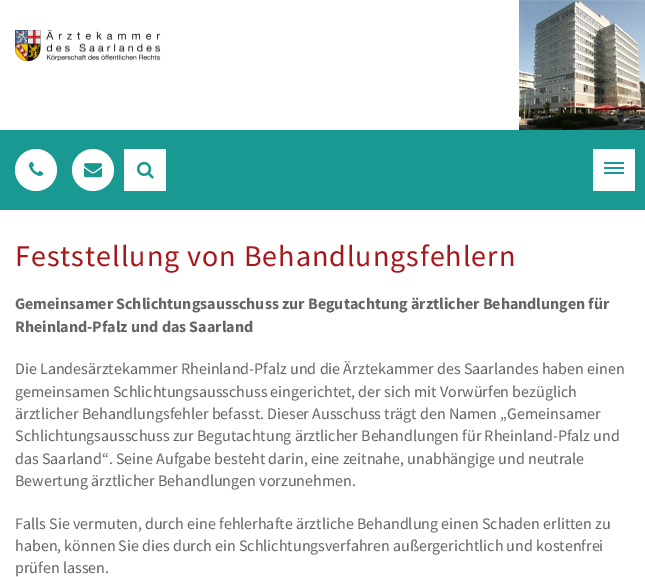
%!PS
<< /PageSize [645 577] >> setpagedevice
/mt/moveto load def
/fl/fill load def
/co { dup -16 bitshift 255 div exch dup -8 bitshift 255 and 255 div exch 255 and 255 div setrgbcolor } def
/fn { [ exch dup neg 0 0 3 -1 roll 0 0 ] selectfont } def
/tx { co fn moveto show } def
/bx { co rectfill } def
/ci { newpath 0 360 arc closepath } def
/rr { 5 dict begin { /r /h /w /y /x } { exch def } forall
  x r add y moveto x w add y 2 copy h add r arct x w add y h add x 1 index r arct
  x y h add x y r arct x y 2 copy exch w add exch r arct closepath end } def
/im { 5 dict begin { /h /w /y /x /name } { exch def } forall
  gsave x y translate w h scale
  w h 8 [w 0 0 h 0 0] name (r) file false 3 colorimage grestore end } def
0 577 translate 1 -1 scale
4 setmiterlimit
0 0 645 577 16#FFFFFF bx
(media/1.raw) 15 30 146 31 im
(media/2.raw) 519 0 126 130 im
0 130 645 80 16#199992 bx
16#FFFFFF co
36 170 21 ci fl
(media/3.raw) 29 161 15 15 im
93 170 21 ci fl
(media/4.raw) 84 163 18 15 im
124 149 42 42 16#FFFFFF bx
(media/5.raw) 137 161 17 18 im
593 149 42 42 16#FFFFFF bx
16#199992 co
604 167 20 2 1 rr fl
604 162 20 2 1 rr fl
604 172 20 2 1 rr fl
/SourceSansPro-Regular 30 fn
16#A5191D co
15 266 mt 1 0 (Feststellung von Behandlungsfehlern) ashow
(Gemeinsamer Schlichtungsausschuss zur Begutachtung ärztlicher Behandlungen für) 15 309 /SourceSansPro-Bold 16 16#656565 tx
(Rheinland-Pfalz und das Saarland) 15 332 /SourceSansPro-Bold 16 16#656565 tx
(Die Landesärztekammer Rheinland-Pfalz und die Ärztekammer des Saarlandes haben einen) 15 374 /SourceSansPro-Regular 16 16#656565 tx
(gemeinsamen Schlichtungsausschuss eingerichtet, der sich mit Vorwürfen bezüglich) 15 397 /SourceSansPro-Regular 16 16#656565 tx
(ärztlicher Behandlungsfehler befasst. Dieser Ausschuss trägt den Namen „Gemeinsamer) 15 419 /SourceSansPro-Regular 16 16#656565 tx
(Schlichtungsausschuss zur Begutachtung ärztlicher Behandlungen für Rheinland-Pfalz und) 15 441 /SourceSansPro-Regular 16 16#656565 tx
(das Saarland“. Seine Aufgabe besteht darin, eine zeitnahe, unabhängige und neutrale) 15 464 /SourceSansPro-Regular 16 16#656565 tx
(Bewertung ärztlicher Behandlungen vorzunehmen.) 15 486 /SourceSansPro-Regular 16 16#656565 tx
(Falls Sie vermuten, durch eine fehlerhafte ärztliche Behandlung einen Schaden erlitten zu) 15 529 /SourceSansPro-Regular 16 16#656565 tx
(haben, können Sie dies durch ein Schlichtungsverfahren außergerichtlich und kostenfrei) 15 551 /SourceSansPro-Regular 16 16#656565 tx
(prüfen lassen.) 15 573 /SourceSansPro-Regular 16 16#656565 tx
showpage
